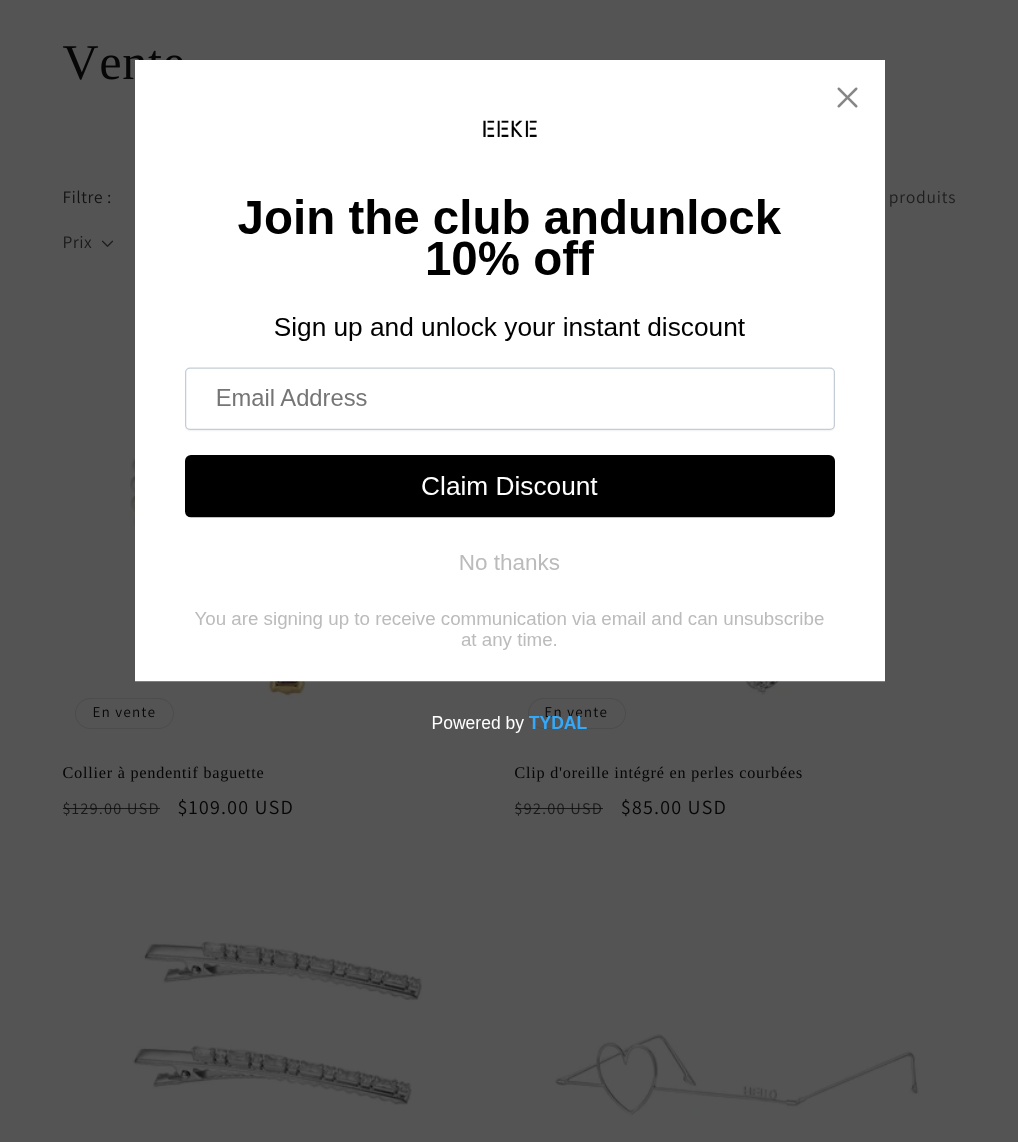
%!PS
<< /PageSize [1018 1142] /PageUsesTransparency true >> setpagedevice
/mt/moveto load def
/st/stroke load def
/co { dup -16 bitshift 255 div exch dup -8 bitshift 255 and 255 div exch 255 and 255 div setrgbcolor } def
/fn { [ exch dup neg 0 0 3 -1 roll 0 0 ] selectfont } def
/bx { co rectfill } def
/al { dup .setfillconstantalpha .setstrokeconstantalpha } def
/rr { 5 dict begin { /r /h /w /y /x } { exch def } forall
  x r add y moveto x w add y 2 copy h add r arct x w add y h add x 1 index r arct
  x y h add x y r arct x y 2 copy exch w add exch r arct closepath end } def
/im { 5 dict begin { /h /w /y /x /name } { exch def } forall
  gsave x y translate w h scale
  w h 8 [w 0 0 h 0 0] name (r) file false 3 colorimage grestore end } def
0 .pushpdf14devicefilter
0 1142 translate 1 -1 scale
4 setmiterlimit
0 0 1018 1142 16#FFFFFF bx
(media/2.raw) 101 240 13 7 im
(media/3.raw) 130 341 314 357 im
16#E7E7E7 co
75.5 698.5 98 30 15 rr st
(media/4.raw) 634 681 206 14 im
528.5 698.5 97 30 15 rr st
(media/5.raw) 132 941 290 164 im
(media/6.raw) 555 1034 364 82 im
/LiberationSerif-Regular 50 fn
16#121212 co
63 79 mt .75 0 (Ve) ashow
/Assistant-Regular 17.5 fn
16#363636 co
63 203 mt .5 0 (Filtre :) ashow
16#4D4D4D co
63 248 mt .5 0 (Prix) ashow
16#595959 co
889 203 mt .75 0 (produits) ashow
/Assistant-Regular 15 fn
16#121212 co
93 717 mt 1.25 0 (En vente) ashow
/LiberationSerif-Regular 16.25 fn
63 778 mt .75 0 (Collier à pendentif baguette) ashow
/Assistant-Regular 16.25 fn
16#4D4D4D co
63 814 mt 1.25 0 ($129.00 USD) ashow
0.75 al
63 808 97 1 16#121212 bx
/Assistant-Regular 20 fn
1 al
178 814 mt 1.25 0 ($109.00 USD) ashow
/Assistant-Regular 15 fn
544 717 mt 1.25 0 (En vente) ashow
/LiberationSerif-Regular 16.25 fn
514 778 mt .75 0 (Clip d'oreille intégré en perles courbées) ashow
/Assistant-Regular 16.25 fn
16#4D4D4D co
514 814 mt 1.25 0 ($92.00 USD) ashow
0.75 al
515 808 88 1 16#121212 bx
/Assistant-Regular 20 fn
1 al
621 814 mt 1.25 0 ($85.00 USD) ashow
(media/1.raw) 0 0 1018 1142 im
.poppdf14devicefilter showpage
